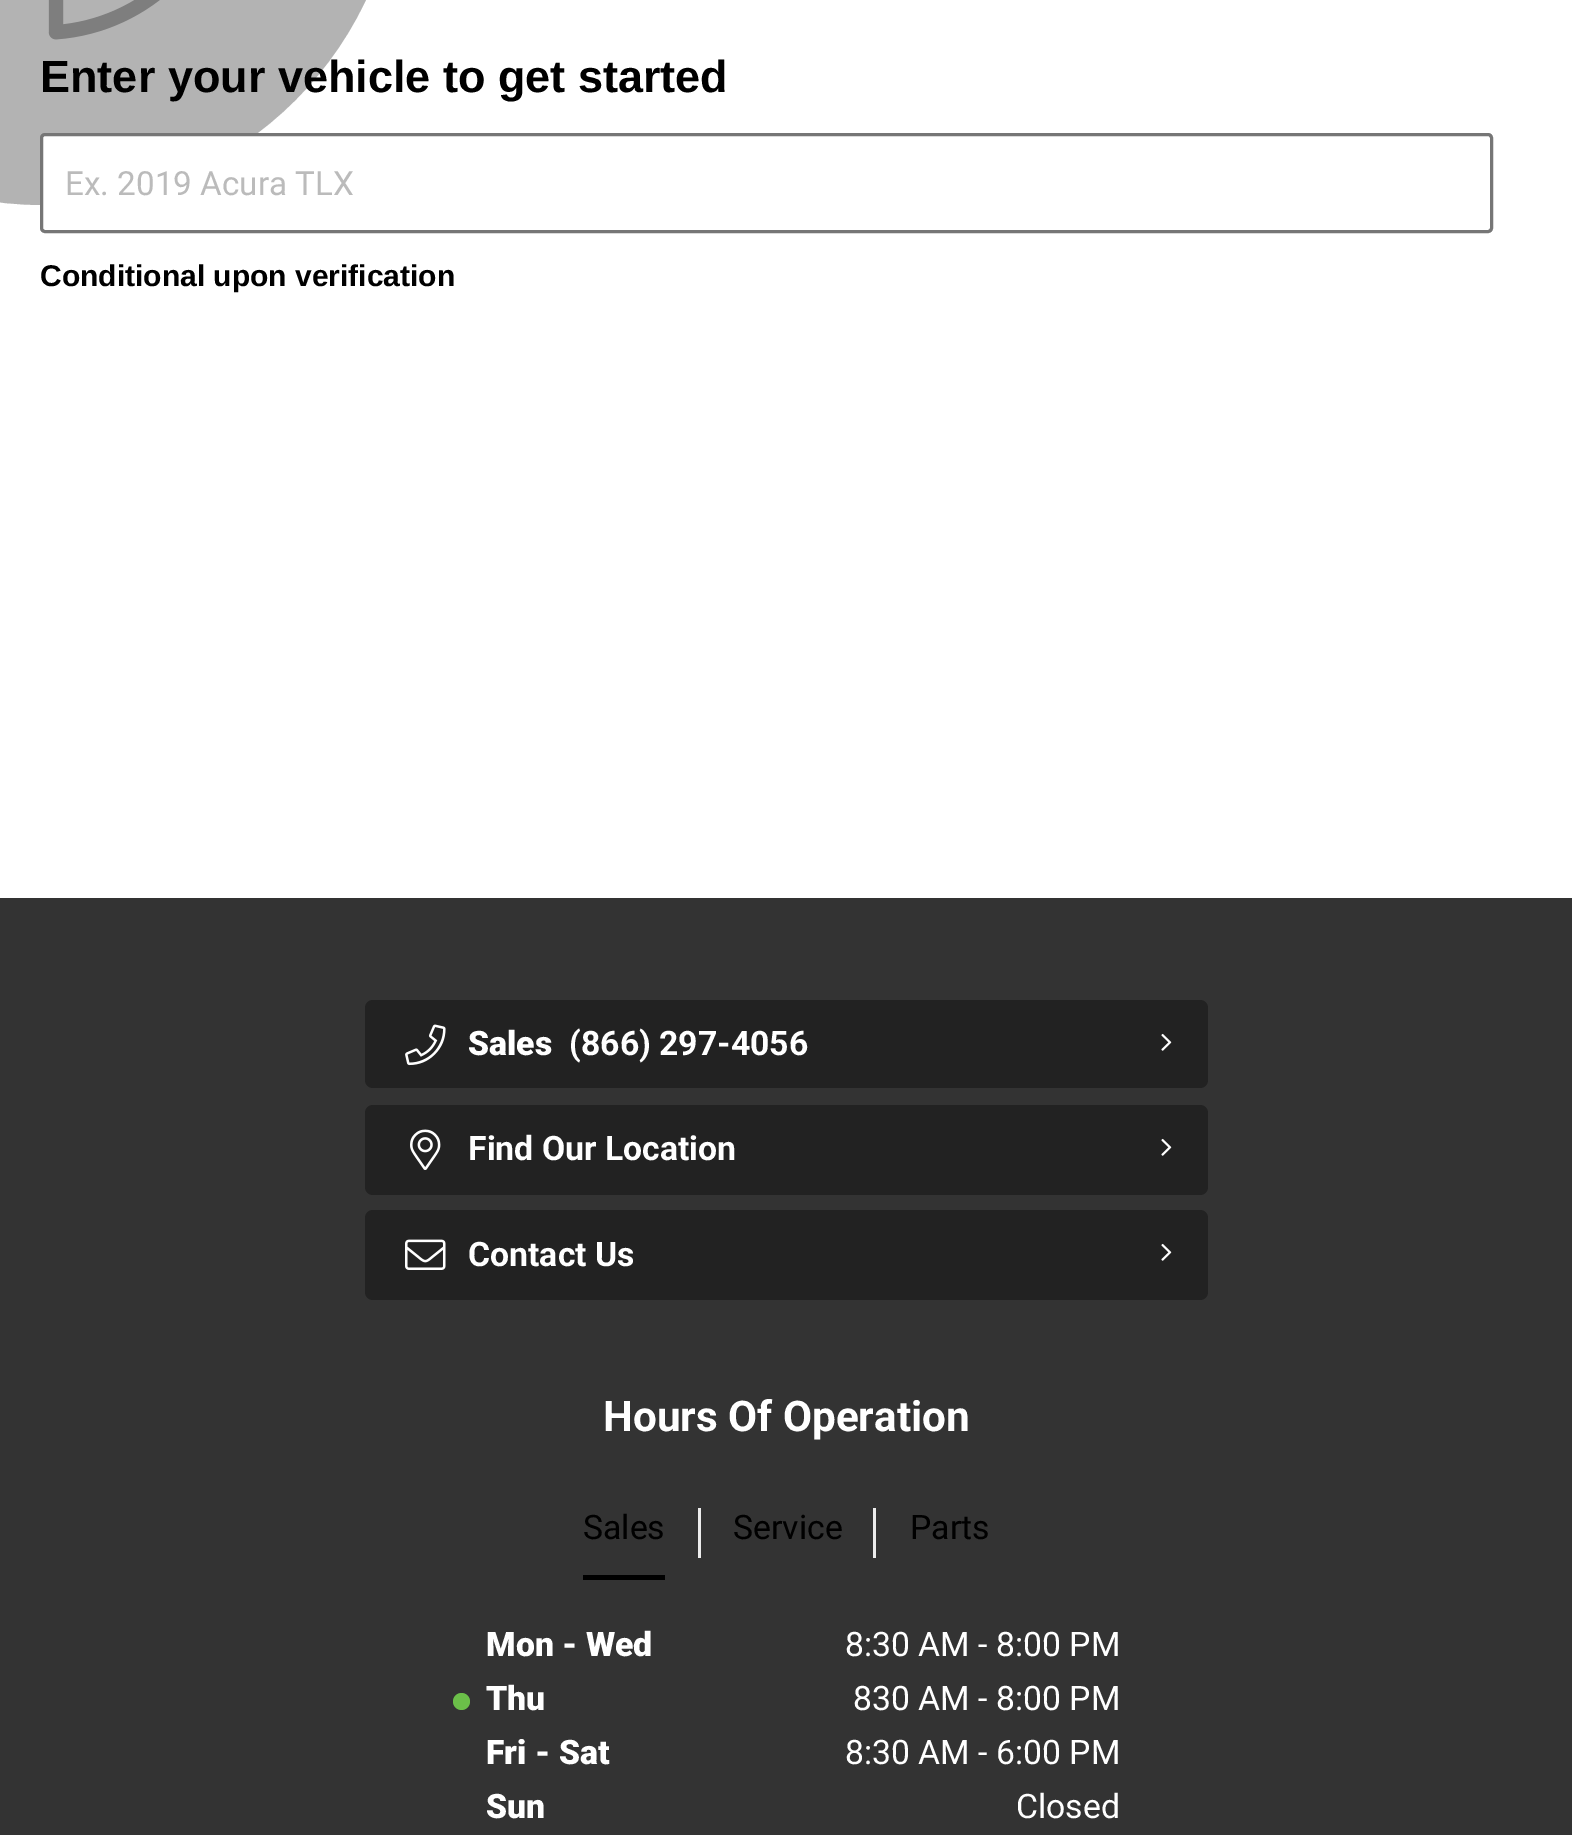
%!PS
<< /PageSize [1572 1835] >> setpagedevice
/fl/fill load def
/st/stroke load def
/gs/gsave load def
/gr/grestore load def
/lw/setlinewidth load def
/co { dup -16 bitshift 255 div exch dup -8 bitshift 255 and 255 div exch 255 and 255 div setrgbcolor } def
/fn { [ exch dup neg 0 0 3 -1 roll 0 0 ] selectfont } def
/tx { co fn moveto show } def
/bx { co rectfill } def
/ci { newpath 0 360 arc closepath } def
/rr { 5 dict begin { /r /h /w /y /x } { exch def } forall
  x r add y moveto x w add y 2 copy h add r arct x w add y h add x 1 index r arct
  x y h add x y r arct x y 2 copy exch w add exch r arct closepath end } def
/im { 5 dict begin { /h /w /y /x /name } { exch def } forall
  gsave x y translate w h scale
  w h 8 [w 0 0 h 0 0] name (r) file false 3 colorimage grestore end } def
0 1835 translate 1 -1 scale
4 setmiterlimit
0 0 1572 1835 16#FFFFFF bx
16#B3B3B3 co
-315 -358 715 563 357.5 rr fl
(media/1.raw) 48 0 112 40 im
16#FFFFFF co
41.5 134.5 1450 97 3.5 rr gs fl gr
16#767676 co
3 lw
st
0 898 1572 937 16#333333 bx
16#222222 co
365 1000 843 88 8 rr fl
(media/2.raw) 405 1024 41 42 im
(media/3.raw) 1161 1033 11 18 im
365 1105 843 90 8 rr fl
(media/4.raw) 410 1129 31 41 im
(media/3.raw) 1161 1138 11 18 im
365 1210 843 90 8 rr fl
(media/5.raw) 405 1239 41 31 im
(media/3.raw) 1161 1243 11 18 im
583 1575 82 5 16#000000 bx
698 1508 3 50 16#ECECEC bx
873 1508 3 50 16#ECECEC bx
16#6BBF49 co
461.5 1701.5 8.5 ci fl
(Enter your vehicle to get started) 40 92 /LiberationSans-Bold 45 16#000000 tx
(Ex. 2019 Acura TLX) 65 195 /Roboto-Regular 33.25 16#BBBBBB tx
(Conditional upon verification) 40 286 /LiberationSans-Bold 30 16#000000 tx
(Sales) 468 1055 /Roboto-Black 33.75 16#FFFFFF tx
(\(866\) 297-4056) 569 1055 /Roboto-Bold 33.75 16#FFFFFF tx
(Find Our Location) 468 1160 /Roboto-Bold 33.75 16#FFFFFF tx
(Contact Us) 468 1266 /Roboto-Bold 33.75 16#FFFFFF tx
(Hours Of Operation) 603 1431 /Roboto-Bold 42.25 16#FFFFFF tx
(Sales) 583 1539 /Roboto-Regular 33.75 16#000000 tx
(Service) 733 1539 /Roboto-Regular 33.75 16#000000 tx
(Parts) 910 1539 /Roboto-Regular 33.75 16#000000 tx
(Mon - Wed) 486 1656 /Roboto-Black 33.75 16#FFFFFF tx
(8:30 AM - 8:00 PM) 845 1656 /Roboto-Regular 33.75 16#FFFFFF tx
(Thu) 486 1710 /Roboto-Black 33.75 16#FFFFFF tx
(830 AM - 8:00 PM) 853 1710 /Roboto-Regular 33.75 16#FFFFFF tx
(Fri - Sat) 486 1764 /Roboto-Black 33.75 16#FFFFFF tx
(8:30 AM - 6:00 PM) 845 1764 /Roboto-Regular 33.75 16#FFFFFF tx
(Sun) 486 1818 /Roboto-Black 33.75 16#FFFFFF tx
(Closed) 1016 1818 /Roboto-Regular 33.75 16#FFFFFF tx
showpage
